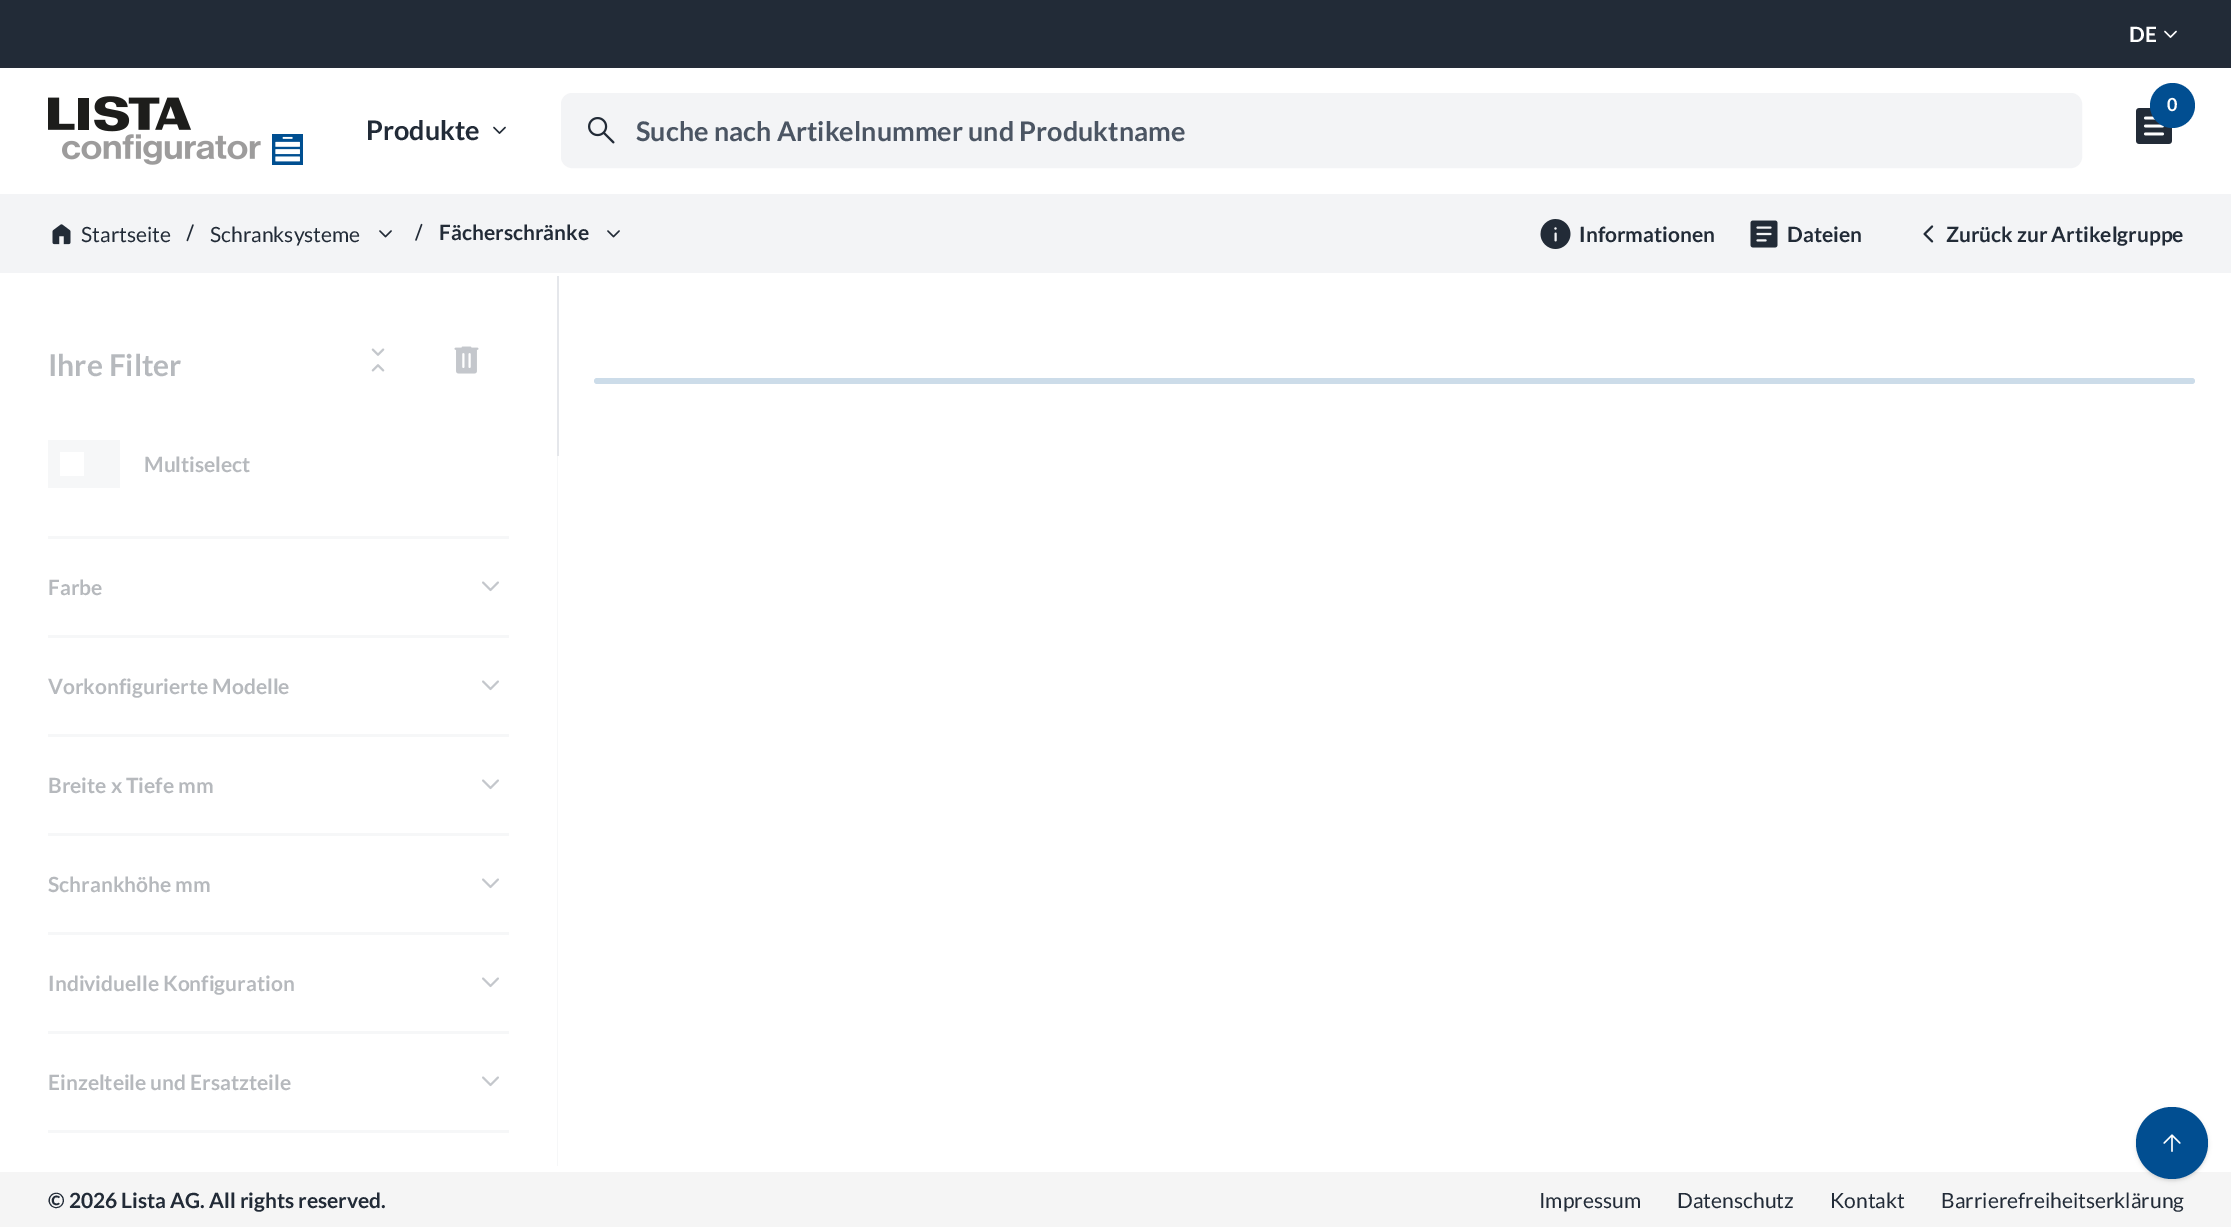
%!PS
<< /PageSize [2231 1227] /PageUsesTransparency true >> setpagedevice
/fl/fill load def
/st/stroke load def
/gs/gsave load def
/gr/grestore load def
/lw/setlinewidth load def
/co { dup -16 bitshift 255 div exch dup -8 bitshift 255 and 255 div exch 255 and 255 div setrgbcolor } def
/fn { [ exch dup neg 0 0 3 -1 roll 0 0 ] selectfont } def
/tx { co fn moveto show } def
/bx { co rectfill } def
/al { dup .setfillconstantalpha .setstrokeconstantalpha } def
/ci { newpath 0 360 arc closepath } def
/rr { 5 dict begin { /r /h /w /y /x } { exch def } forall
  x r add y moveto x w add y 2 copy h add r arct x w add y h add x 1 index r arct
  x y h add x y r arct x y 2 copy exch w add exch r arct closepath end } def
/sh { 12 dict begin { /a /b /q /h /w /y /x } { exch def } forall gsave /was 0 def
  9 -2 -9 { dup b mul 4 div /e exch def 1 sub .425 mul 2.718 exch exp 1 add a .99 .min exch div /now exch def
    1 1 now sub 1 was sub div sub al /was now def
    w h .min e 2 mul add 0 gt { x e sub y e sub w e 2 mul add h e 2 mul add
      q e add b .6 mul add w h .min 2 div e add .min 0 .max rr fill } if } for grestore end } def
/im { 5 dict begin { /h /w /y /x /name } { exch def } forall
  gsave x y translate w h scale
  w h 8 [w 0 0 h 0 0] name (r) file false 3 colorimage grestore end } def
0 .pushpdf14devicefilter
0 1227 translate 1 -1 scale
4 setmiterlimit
0 0 2231 1227 16#FFFFFF bx
0 0 2231 68 16#222B37 bx
(media/1.raw) 2164 30 13 8 im
16#636363 co
0 71 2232 126 0 6 .1 sh
0 68 2231 126 16#FFFFFF bx
(media/2.raw) 48 96 255 69 im
(media/3.raw) 2136 108 36 36 im
16#014E91 co
2172.5 105.5 22.5 ci fl
(media/4.raw) 493 126 13 8 im
16#F3F4F6 co
562.5 94.5 1518 72 9.5 rr gs fl gr
3 lw
st
(media/5.raw) 588 117 27 27 im
0 194 2231 79 16#F3F4F6 bx
(media/6.raw) 52 224 19 21 im
(media/7.raw) 186 224 8 18 im
(media/8.raw) 379 230 13 8 im
(media/9.raw) 415 223 8 18 im
(media/8.raw) 607 230 13 8 im
(media/10.raw) 1540 219 31 30 im
(media/11.raw) 1750 220 28 28 im
(media/12.raw) 1923 225 11 18 im
557 456 1 710 16#F6F7F8 bx
(media/13.raw) 371 348 14 24 im
(media/14.raw) 454 346 25 28 im
48 440 72 48 16#F6F7F8 bx
60 452 24 24 16#FFFFFF bx
48 536 461 3 16#F6F7F8 bx
(media/15.raw) 482 581 17 11 im
48 635 461 3 16#F6F7F8 bx
(media/15.raw) 482 680 17 11 im
48 734 461 3 16#F6F7F8 bx
(media/15.raw) 482 779 17 11 im
48 833 461 3 16#F6F7F8 bx
(media/15.raw) 482 878 17 11 im
48 932 461 3 16#F6F7F8 bx
(media/15.raw) 482 977 17 11 im
48 1031 461 3 16#F6F7F8 bx
(media/15.raw) 482 1076 17 11 im
48 1130 461 3 16#F6F7F8 bx
557 276 2 180 16#E5E7EB bx
16#CCDCE9 co
594 378 1601 6 3 rr fl
0 1172 2231 55 16#F5F5F5 bx
16#000000 co
2138 1110 69 69 34.5 1.5 .1 sh
2136 1109 72 72 36 2 .1 sh
16#014E91 co
2172 1143 36 ci fl
(media/16.raw) 2163 1134 18 18 im
(DE) 2129 42 /Lato-Bold 21 16#FFFFFF tx
(0) 2167 111 /Lato-Bold 18 16#FFFFFF tx
(Produkte) 366 140 /Lato-Bold 27 16#222B37 tx
(Suche nach Artikelnummer und Produktname) 636 141 /Lato-Bold 27 16#4B5563 tx
(Startseite) 81 242 /Lato-Regular 21 16#222B37 tx
(Schranksysteme) 210 242 /Lato-Regular 21 16#222B37 tx
(Fächerschränke) 439 240 /Lato-Bold 21 16#222B37 tx
(Informationen) 1579 242 /Lato-Bold 21 16#222B37 tx
(Dateien) 1787 242 /Lato-Bold 21 16#222B37 tx
(Zurück zur Artikelgruppe) 1946 242 /Lato-Bold 21 16#222B37 tx
(Ihre Filter) 48 376 /Lato-Bold 30 16#B6B9BD tx
(Multiselect) 144 472 /Lato-Bold 21 16#B6B9BD tx
(Farbe) 48 595 /Lato-Bold 21 16#B6B9BD tx
(Vorkonfigurierte Modelle) 48 694 /Lato-Bold 21 16#B6B9BD tx
(Breite x Tiefe mm) 48 793 /Lato-Bold 21 16#B6B9BD tx
(Schrankhöhe mm) 48 892 /Lato-Bold 21 16#B6B9BD tx
(Individuelle Konfiguration) 48 991 /Lato-Bold 21 16#B6B9BD tx
(Einzelteile und Ersatzteile) 48 1090 /Lato-Bold 21 16#B6B9BD tx
(© 2026 Lista AG. All rights reserved.) 48 1208 /Lato-Bold 21 16#222B37 tx
(Impressum) 1539 1208 /Lato-Regular 21 16#222B37 tx
(Datenschutz) 1677 1208 /Lato-Regular 21 16#222B37 tx
(Kontakt) 1830 1208 /Lato-Regular 21 16#222B37 tx
(Barrierefreiheitserklärung) 1941 1208 /Lato-Regular 21 16#222B37 tx
.poppdf14devicefilter showpage
